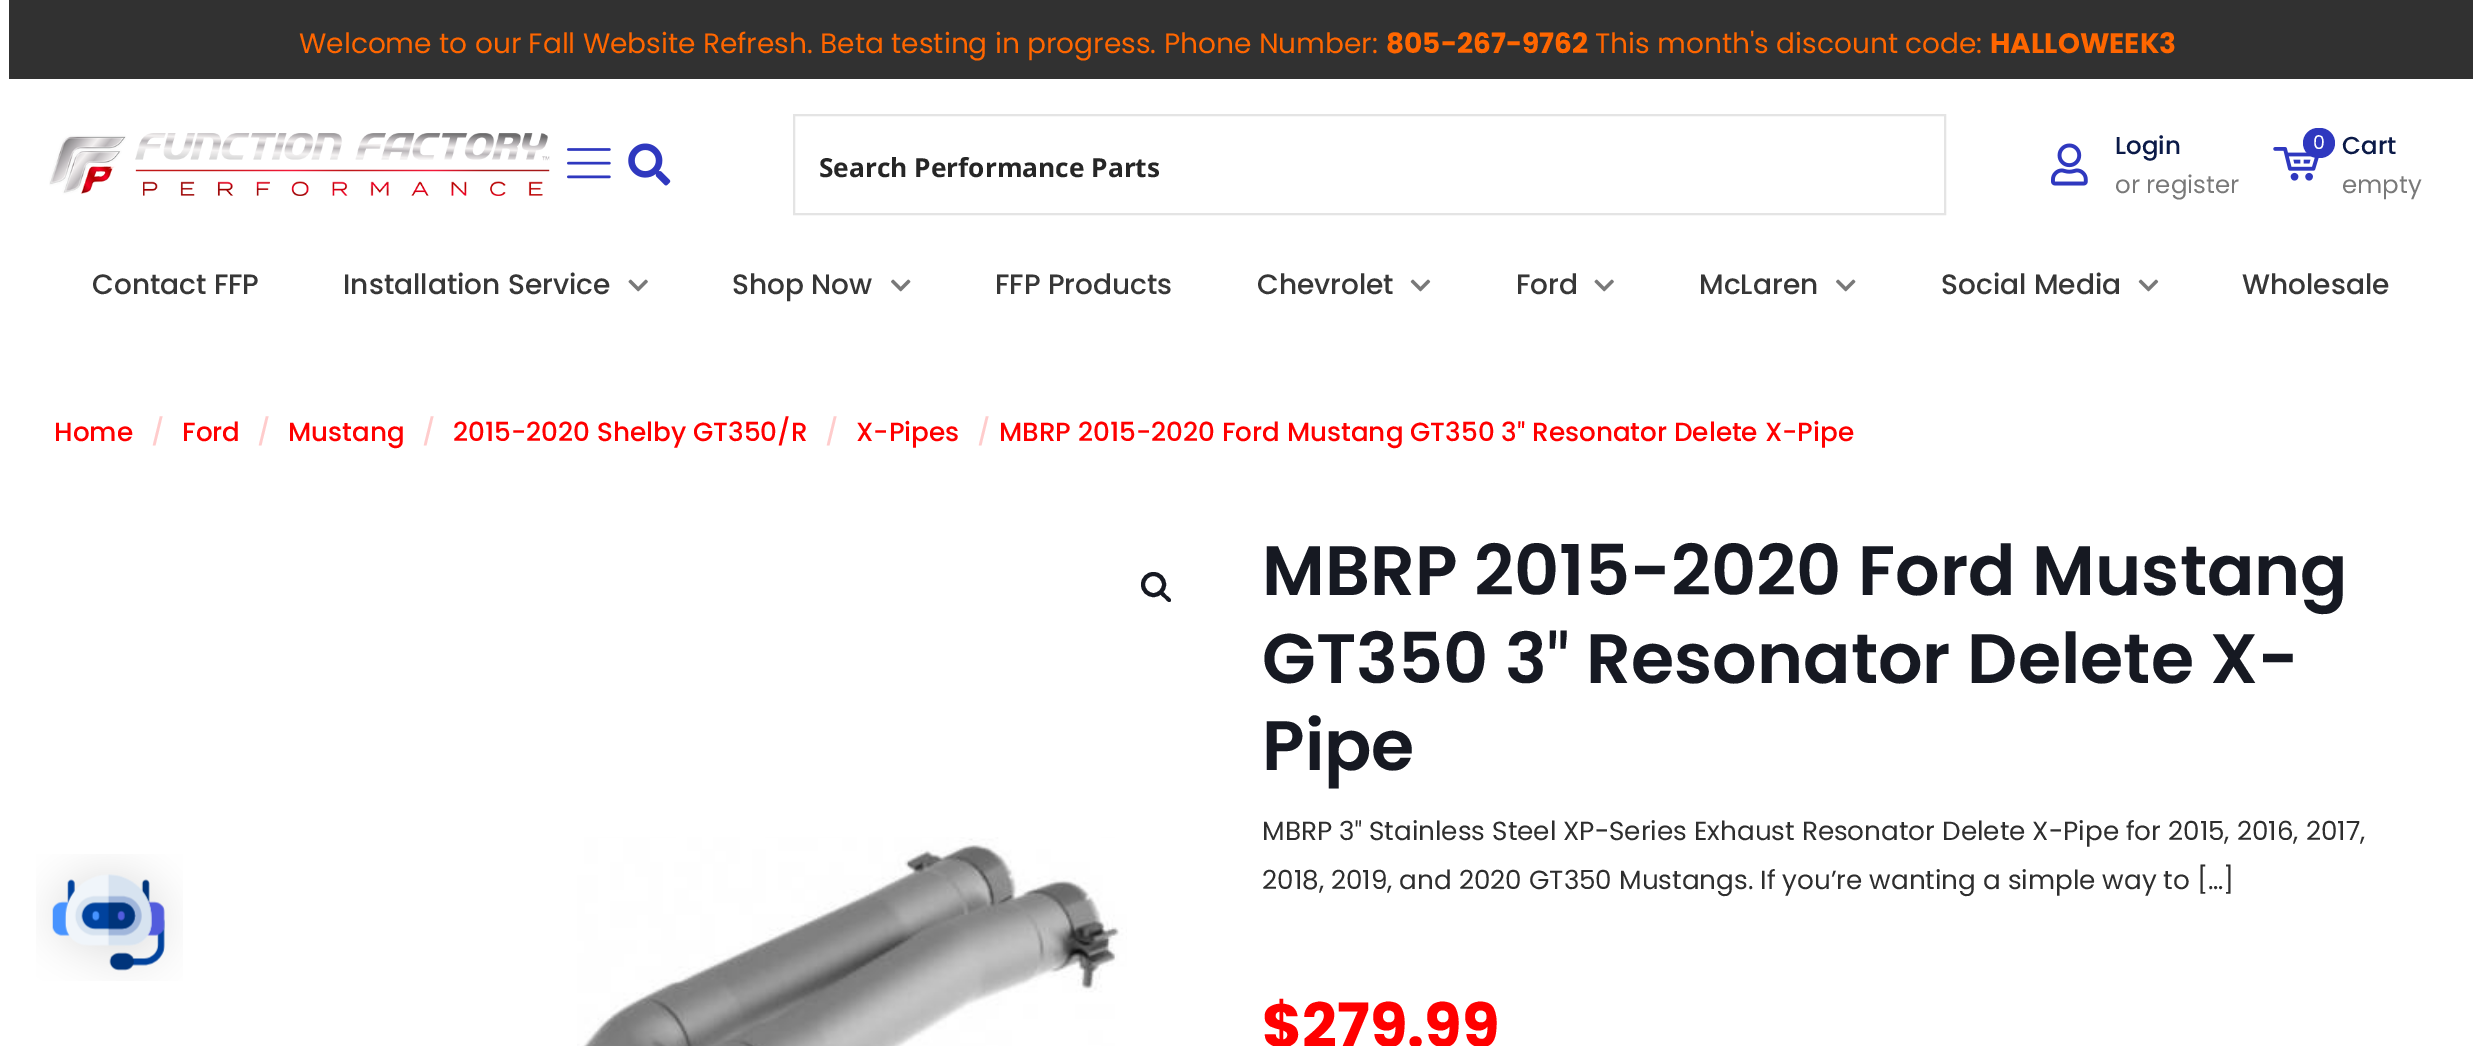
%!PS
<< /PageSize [2481 1046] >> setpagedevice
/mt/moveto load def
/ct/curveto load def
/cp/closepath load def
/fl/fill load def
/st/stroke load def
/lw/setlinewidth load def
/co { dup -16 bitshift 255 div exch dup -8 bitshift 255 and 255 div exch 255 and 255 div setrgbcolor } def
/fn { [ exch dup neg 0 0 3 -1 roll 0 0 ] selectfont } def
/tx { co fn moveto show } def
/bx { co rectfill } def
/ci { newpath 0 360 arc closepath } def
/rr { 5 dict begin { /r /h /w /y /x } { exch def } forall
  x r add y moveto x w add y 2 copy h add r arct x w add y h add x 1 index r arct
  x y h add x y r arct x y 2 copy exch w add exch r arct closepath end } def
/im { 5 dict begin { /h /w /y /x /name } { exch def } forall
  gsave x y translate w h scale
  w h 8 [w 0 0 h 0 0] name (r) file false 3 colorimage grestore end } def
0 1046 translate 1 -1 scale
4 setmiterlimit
0 0 2481 1046 16#FFFFFF bx
9 0 2464 79 16#313131 bx
(media/1.raw) 49 133 501 63 im
(media/2.raw) 567 148 44 31 im
(media/3.raw) 628 143 43 43 im
16#E4E4E4 co
2 lw
794 115 1151 99 rectstroke
(media/4.raw) 2051 143 37 43 im
(media/5.raw) 2273 147 46 34 im
16#2F38BF co
2303 128 32 30 15 rr fl
(media/6.raw) 628 279 20 13 im
(media/7.raw) 891 279 20 13 im
(media/8.raw) 1410 279 21 13 im
(media/6.raw) 1594 279 20 13 im
(media/7.raw) 1836 279 20 13 im
(media/8.raw) 2138 279 21 13 im
16#161922 co
4 lw
1153.5 584.5 10.5 ci st
1160.5 592 mt 1162.5 590 1165.5 594.5 1166.5 595.5 ct 1168 596.5 1172.5 599.5 1170.5 601.5 ct 1168.5 603.5 1165.5 599 1164.5 598 ct 1163 597 1158.5 594 1160.5 592 ct cp fl
(media/9.raw) 577 837 550 209 im
(media/10.raw) 36 854 147 127 im
(Welcome to our Fall Website Refresh. Beta testing in progress. Phone Number:) 299 53 /Poppins-Regular 28 16#FF6600 tx
(805-267-9762) 1386 53 /Poppins-Bold 28 16#FF6600 tx
(This month's discount code:) 1595 53 /Poppins-Regular 28 16#FF6600 tx
(HALLOWEEK3) 1990 53 /Poppins-Bold 28 16#FF6600 tx
(Search Performance Parts) 819 177 /OpenSans-Bold 26.25 16#262626 tx
(Login) 2115 154 /Poppins-Medium 24.5 16#0B1A48 tx
(or register) 2115 193 /Poppins-Regular 24.5 16#797979 tx
(0) 2313 149 /Poppins-Regular 19 16#FFFFFF tx
(Cart) 2342 154 /Poppins-Medium 24.5 16#0B1A48 tx
(empty) 2342 193 /Poppins-Regular 24.5 16#797979 tx
(Contact FFP) 92 294 /Poppins-Medium 28 16#373737 tx
(Installation Service) 343 294 /Poppins-Medium 28 16#373737 tx
(Shop Now) 732 294 /Poppins-Medium 28 16#373737 tx
(FFP Products) 995 294 /Poppins-Medium 28 16#373737 tx
(Chevrolet) 1257 294 /Poppins-Medium 28 16#373737 tx
(Ford) 1516 294 /Poppins-Medium 28 16#373737 tx
(McLaren) 1699 294 /Poppins-Medium 28 16#373737 tx
(Social Media) 1941 294 /Poppins-Medium 28 16#373737 tx
(Wholesale) 2242 294 /Poppins-Medium 28 16#373737 tx
(Home) 54 441 /Poppins-Medium 26.25 16#FF0000 tx
(/) 151 441 /Poppins-Medium 26.25 16#FFCCCC tx
(Ford) 182 441 /Poppins-Medium 26.25 16#FF0000 tx
(/) 257 441 /Poppins-Medium 26.25 16#FFCCCC tx
(Mustang) 288 441 /Poppins-Medium 26.25 16#FF0000 tx
(/) 422 441 /Poppins-Medium 26.25 16#FFCCCC tx
(2015-2020 Shelby GT350/R) 453 441 /Poppins-Medium 26.25 16#FF0000 tx
(/) 825 441 /Poppins-Medium 26.25 16#FFCCCC tx
(X-Pipes) 856 441 /Poppins-Medium 26.25 16#FF0000 tx
(/) 977 441 /Poppins-Medium 26.25 16#FFCCCC tx
(MBRP 2015-2020 Ford Mustang GT350 3) 999 441 /Poppins-Medium 26.25 16#FF0000 tx
(″) 1517 441 /Roboto-Medium 26.25 16#FF0000 tx
(Resonator Delete X-Pipe) 1532 441 /Poppins-Medium 26.25 16#FF0000 tx
(MBRP 2015-2020 Ford Mustang) 1262 595 /Poppins-SemiBold 70 16#161922 tx
(GT350 3) 1262 683 /Poppins-SemiBold 70 16#161922 tx
(″) 1547 683 /Roboto-SemiBold 70 16#161922 tx
(Resonator Delete X-) 1586 683 /Poppins-SemiBold 70 16#161922 tx
(Pipe) 1262 770 /Poppins-SemiBold 70 16#161922 tx
(MBRP 3) 1262 840 /Poppins-Regular 26.25 16#2E2E2E tx
(″) 1354 840 /Roboto-Regular 26.25 16#2E2E2E tx
(Stainless Steel XP-Series Exhaust Resonator Delete X-Pipe for 2015, 2016, 2017,) 1369 840 /Poppins-Regular 26.25 16#2E2E2E tx
(2018, 2019, and 2020 GT350 Mustangs. If you’re wanting a simple way to […]) 1262 889 /Poppins-Regular 26.25 16#2E2E2E tx
($279.99) 1262 1047 /Poppins-Bold 61 16#FF0000 tx
showpage
